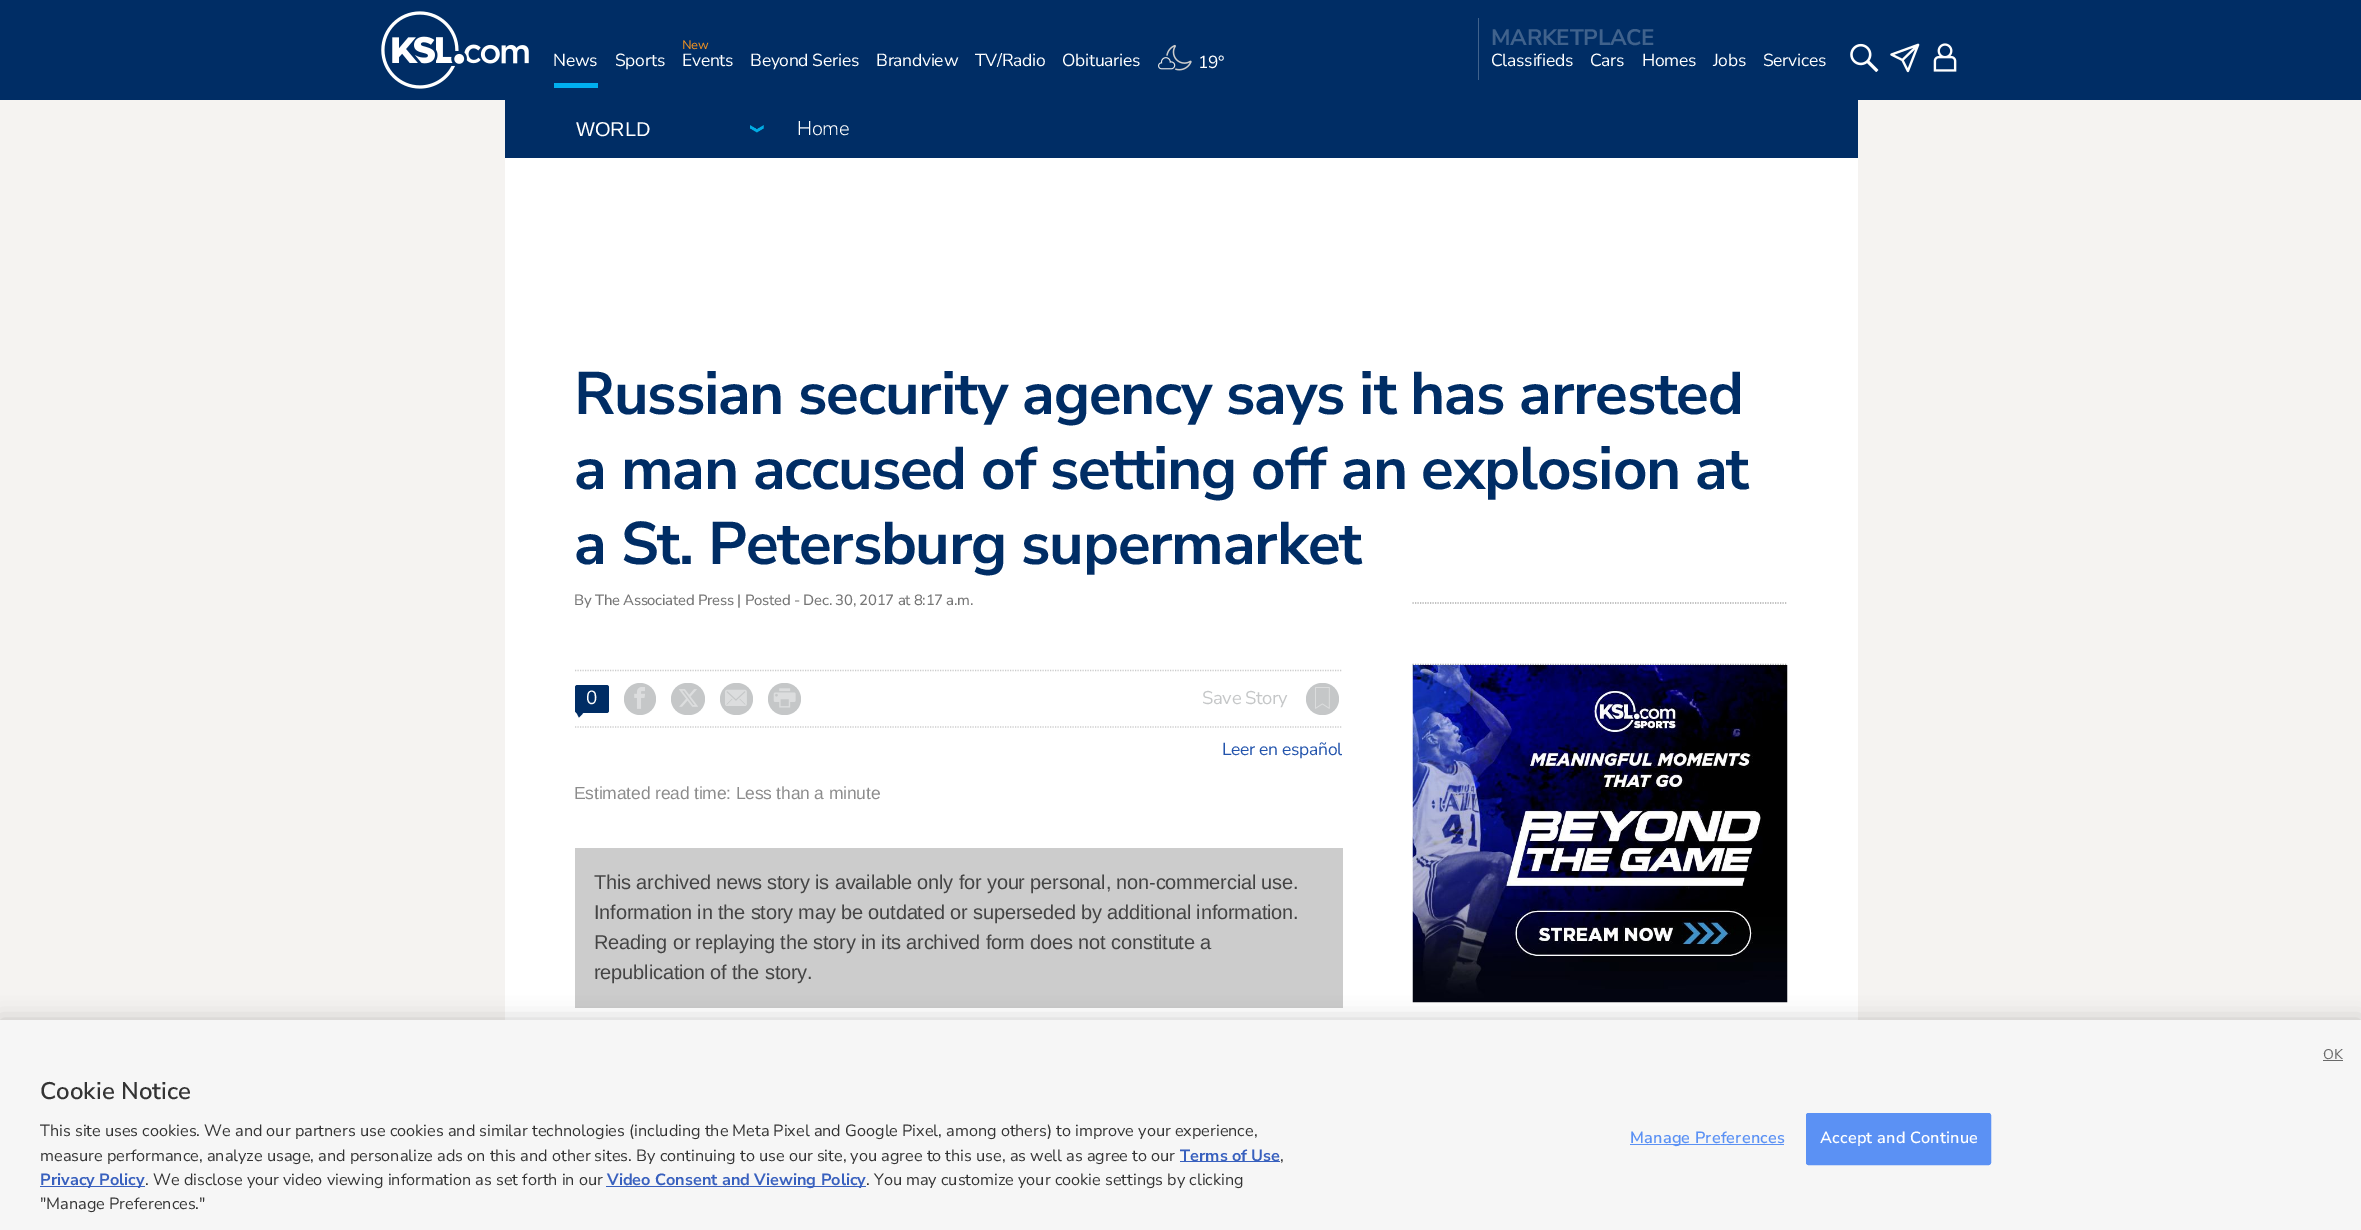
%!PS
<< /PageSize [2361 1230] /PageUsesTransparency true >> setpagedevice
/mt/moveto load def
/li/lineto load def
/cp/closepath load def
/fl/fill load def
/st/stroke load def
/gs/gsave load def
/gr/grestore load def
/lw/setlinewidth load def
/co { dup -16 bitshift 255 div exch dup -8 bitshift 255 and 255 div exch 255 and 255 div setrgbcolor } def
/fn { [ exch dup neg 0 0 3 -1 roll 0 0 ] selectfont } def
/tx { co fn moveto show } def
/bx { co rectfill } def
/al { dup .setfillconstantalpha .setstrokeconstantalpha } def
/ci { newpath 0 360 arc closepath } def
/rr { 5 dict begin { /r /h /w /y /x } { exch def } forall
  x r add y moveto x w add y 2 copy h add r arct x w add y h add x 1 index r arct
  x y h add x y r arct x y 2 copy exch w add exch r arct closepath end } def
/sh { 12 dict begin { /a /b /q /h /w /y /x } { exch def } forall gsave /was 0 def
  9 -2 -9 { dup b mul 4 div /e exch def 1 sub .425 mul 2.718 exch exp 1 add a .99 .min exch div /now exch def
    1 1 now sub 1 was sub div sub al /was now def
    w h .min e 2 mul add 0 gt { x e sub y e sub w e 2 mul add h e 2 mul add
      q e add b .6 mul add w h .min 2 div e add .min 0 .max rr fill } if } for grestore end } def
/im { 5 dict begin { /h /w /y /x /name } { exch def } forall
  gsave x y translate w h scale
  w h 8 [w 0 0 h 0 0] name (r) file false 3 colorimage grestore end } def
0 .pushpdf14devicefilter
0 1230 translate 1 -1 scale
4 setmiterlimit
0 0 2361 1230 16#F5F3F1 bx
0 0 2361 100 16#002D65 bx
(media/1.raw) 381 11 148 78 im
554 83 44 5 16#00AFEF bx
(media/2.raw) 1158 44 34 27 im
1478 18 1 62 16#40628C bx
(media/3.raw) 1850 43 29 29 im
(media/4.raw) 1890 43 30 30 im
(media/5.raw) 1933 43 24 29 im
505 158 1353 862 16#FFFFFF bx
505 100 1353 58 16#002D65 bx
(media/6.raw) 750 125 14 8 im
16#AAAAAA co
1.2 lw
[1.25 1.25] 0 setdash
1412.5 603 mt 1787.5 603 li st
16#CCCCCC co
575 670.5 mt 1342.5 670.5 li st
16#002D65 co
575 685 34 28 2.5 rr fl
575 710 mt 586 710 li 579 717.5 li cp fl
16#C5C7C8 co
640 699 16 ci fl
(media/7.raw) 634 687 11 22 im
671 683 34 32 16 rr fl
(media/8.raw) 679 689 19 18 im
720 683 33 32 16 rr fl
(media/9.raw) 725 689 22 17 im
768 683 33 32 16 rr fl
(media/10.raw) 773 688 23 20 im
1306 683 33 32 16 rr fl
(media/11.raw) 1315 687 15 22 im
16#CCCCCC co
575 727 mt 1342.5 727 li st
575 848 768 160 16#CCCCCC bx
16#AAAAAA co
1412.5 664.5 mt 1787.5 664.5 li st
(media/12.raw) 1412 665 376 338 im
16#000000 co
0 1020 2361 210 0 11 .2 sh
0 1020 2361 210 16#F6F6F6 bx
2323 1060 20 1 16#696969 bx
1180 1161 100 1 16#3860BE bx
40 1186 105 1 16#3860BE bx
606 1186 260 1 16#3860BE bx
1630 1144 154 1 16#5B91F4 bx
1806.5 1113.5 184 51 2 rr gs fl gr
1 lw
[] 0 setdash
st
/NunitoSans-Regular 17.5 fn
16#FFFFFF co
553 66 mt -.3 0 (News) ashow
615 66 mt -.3 0 (Sports) ashow
/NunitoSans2-Regular 12.5 fn
16#F7941D co
682 49 mt -.3 0 (New) ashow
/NunitoSans-Regular 17.5 fn
16#FFFFFF co
682 66 mt -.3 0 (Events) ashow
750 66 mt -.3 0 (Beyond Series) ashow
876 66 mt -.3 0 (Brandview) ashow
975 66 mt -.3 0 (TV/Radio) ashow
1062 66 mt -.3 0 (Obituaries) ashow
1198 68 mt -.3 0 (19°) ashow
/NunitoSans-Bold 22.5 fn
16#40628C co
1491 45 mt -.3 0 (MARKETPLACE) ashow
/NunitoSans-Regular 17.5 fn
16#FFFFFF co
1491 66 mt -.3 0 (Classifieds) ashow
1590 66 mt -.3 0 (Cars) ashow
1642 66 mt -.3 0 (Homes) ashow
1713 66 mt -.3 0 (Jobs) ashow
1763 66 mt -.3 0 (Services) ashow
(WORLD) 576 136 /LiberationSans-Regular 20 16#FFFFFF tx
/NunitoSans-Light 20 fn
797 135 mt -.3 0 (Home) ashow
/NunitoSans-Bold 60 fn
16#002D65 co
574 414 mt -1.2 0 (Russian security agency says it has arrested) ashow
574 489 mt -1.2 0 (a man accused of setting off an explosion at) ashow
574 564 mt -1.2 0 (a St. Petersburg supermarket) ashow
/NunitoSans-Medium 14.9 fn
16#767676 co
574 605 mt -.3 0 (By The Associated Press |) ashow
745 605 mt -.3 0 (Posted - Dec. 30, 2017 at 8:17 a.m.) ashow
(0) 586 704 /NunitoSans-Regular 19 16#FFFFFF tx
/NunitoSans-Regular 18.5 fn
16#C5C7C8 co
1202 704 mt -.4 0 (Save Story) ashow
/NunitoSans-Regular 17.5 fn
16#2354AC co
1222 755 mt -.3 0 (Leer en español) ashow
/LiberationSans-Regular 17.5 fn
16#8C8C8C co
574 799 mt -.18 0 (Estimated read time: Less than a minute) ashow
/LiberationSans-Regular 20 fn
16#444444 co
594 889 mt -.18 0 (This archived news story is available only for your personal, non-commercial use.) ashow
594 919 mt -.18 0 (Information in the story may be outdated or superseded by additional information.) ashow
594 949 mt -.18 0 (Reading or replaying the story in its archived form does not constitute a) ashow
594 979 mt -.18 0 (republication of the story.) ashow
(OK) 2323 1059 /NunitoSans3-Regular 14 16#696969 tx
(Cookie Notice) 40 1099 /NunitoSans-SemiBold 24 16#343434 tx
(This site uses cookies. We and our partners use cookies and similar technologies \(including the Meta Pixel and Google Pixel, among others\) to improve your experience,) 40 1136 /NunitoSans-Regular 16.25 16#343434 tx
(measure performance, analyze usage, and personalize ads on this and other sites. By continuing to use our site, you agree to this use, as well as agree to our) 40 1161 /NunitoSans-Regular 16.25 16#343434 tx
(Terms of Use) 1180 1161 /NunitoSans-Bold 16.25 16#3860BE tx
(,) 1280 1161 /NunitoSans-Regular 16.25 16#343434 tx
(Privacy Policy) 40 1185 /NunitoSans-Bold 16.25 16#3860BE tx
(. We disclose your video viewing information as set forth in our) 145 1185 /NunitoSans-Regular 16.25 16#343434 tx
(Video Consent and Viewing Policy) 607 1185 /NunitoSans-Bold 16.25 16#3860BE tx
(. You may customize your cookie settings by clicking) 866 1185 /NunitoSans-Regular 16.25 16#343434 tx
("Manage Preferences.") 40 1209 /NunitoSans-Regular 16.25 16#343434 tx
/NunitoSans-SemiBold 16.25 fn
16#5B91F4 co
1630 1143 mt .2 0 (Manage Preferences) ashow
16#FFFFFF co
1820 1143 mt .2 0 (Accept and Continue) ashow
.poppdf14devicefilter showpage
